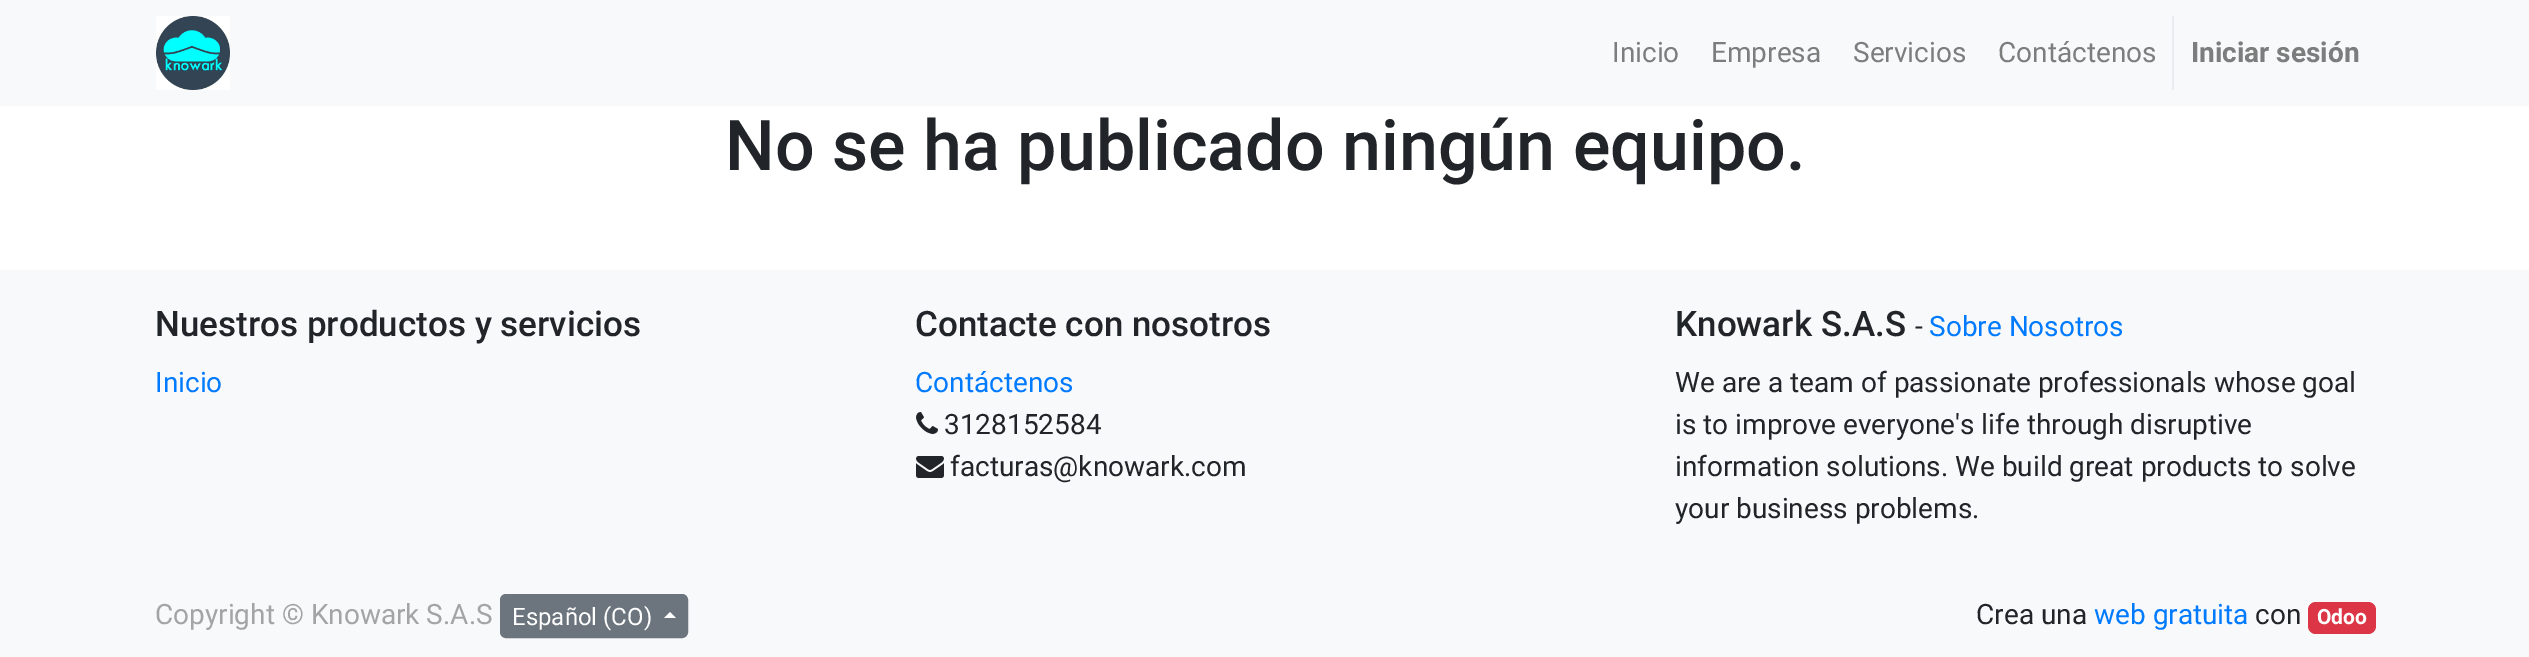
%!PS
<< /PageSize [2529 657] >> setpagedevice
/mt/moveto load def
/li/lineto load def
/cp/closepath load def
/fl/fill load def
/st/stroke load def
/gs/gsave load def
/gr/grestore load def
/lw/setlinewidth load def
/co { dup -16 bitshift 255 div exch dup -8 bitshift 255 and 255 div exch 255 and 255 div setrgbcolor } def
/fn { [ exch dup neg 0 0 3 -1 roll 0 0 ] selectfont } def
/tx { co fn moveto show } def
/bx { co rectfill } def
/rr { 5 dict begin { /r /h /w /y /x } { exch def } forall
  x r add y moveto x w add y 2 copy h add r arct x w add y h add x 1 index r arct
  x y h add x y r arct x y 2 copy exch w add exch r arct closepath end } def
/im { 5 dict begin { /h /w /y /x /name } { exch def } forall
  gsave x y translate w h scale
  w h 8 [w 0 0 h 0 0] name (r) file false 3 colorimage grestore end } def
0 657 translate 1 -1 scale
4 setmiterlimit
0 0 2529 657 16#FFFFFF bx
0 0 2529 106 16#F8F9FA bx
(media/1.raw) 156 16 74 74 im
2172 16 2 74 16#E9ECEF bx
0 270 2529 387 16#F8F9FA bx
(media/2.raw) 916 412 22 22 im
(media/3.raw) 916 456 28 22 im
16#6C757D co
501 595 186 42 5 rr gs fl gr
2 lw
st
16#FFFFFF co
676 618 mt 664 618 li 670 612 li cp fl
16#DC3545 co
2308 602 68 32 8 rr fl
(Inicio) 1612 62 /Roboto-Regular 28 16#7C7D7D tx
(Empresa) 1711 62 /Roboto-Regular 28 16#7C7D7D tx
(Servicios) 1853 62 /Roboto-Regular 28 16#7C7D7D tx
(Contáctenos) 1998 62 /Roboto-Regular 28 16#7C7D7D tx
(Iniciar sesión) 2191 62 /Roboto-Bold 28 16#7C7D7D tx
(No se ha publicado ningún equipo.) 725 170 /Roboto-Medium 70 16#212529 tx
(Nuestros productos y servicios) 155 336 /Roboto-Medium 35 16#212529 tx
(Inicio) 155 392 /Roboto-Regular 28 16#007BFF tx
(Contacte con nosotros) 915 336 /Roboto-Medium 35 16#212529 tx
(Contáctenos) 915 392 /Roboto-Regular 28 16#007BFF tx
(3128152584) 944 434 /Roboto-Regular 28 16#212529 tx
(facturas@knowark.com) 950 476 /Roboto-Regular 28 16#212529 tx
(Knowark S.A.S) 1675 336 /Roboto-Medium 35 16#212529 tx
(-) 1915 336 /Roboto-Regular 28 16#212529 tx
(Sobre Nosotros) 1929 336 /Roboto-Regular 28 16#007BFF tx
(We are a team of passionate professionals whose goal) 1675 392 /Roboto-Regular 28 16#212529 tx
(is to improve everyone's life through disruptive) 1675 434 /Roboto-Regular 28 16#212529 tx
(information solutions. We build great products to solve) 1675 476 /Roboto-Regular 28 16#212529 tx
(your business problems.) 1675 518 /Roboto-Regular 28 16#212529 tx
(Copyright © Knowark S.A.S) 155 624 /Roboto-Regular 28 16#A2A4A6 tx
(Español \(CO\)) 512 625 /Roboto-Regular 24 16#FFFFFF tx
(Crea una) 1976 624 /Roboto-Regular 28 16#212529 tx
(web gratuita) 2094 624 /Roboto-Regular 28 16#007BFF tx
(con) 2255 624 /Roboto-Regular 28 16#212529 tx
(Odoo) 2317 624 /Roboto-Bold 21 16#FFFFFF tx
showpage
